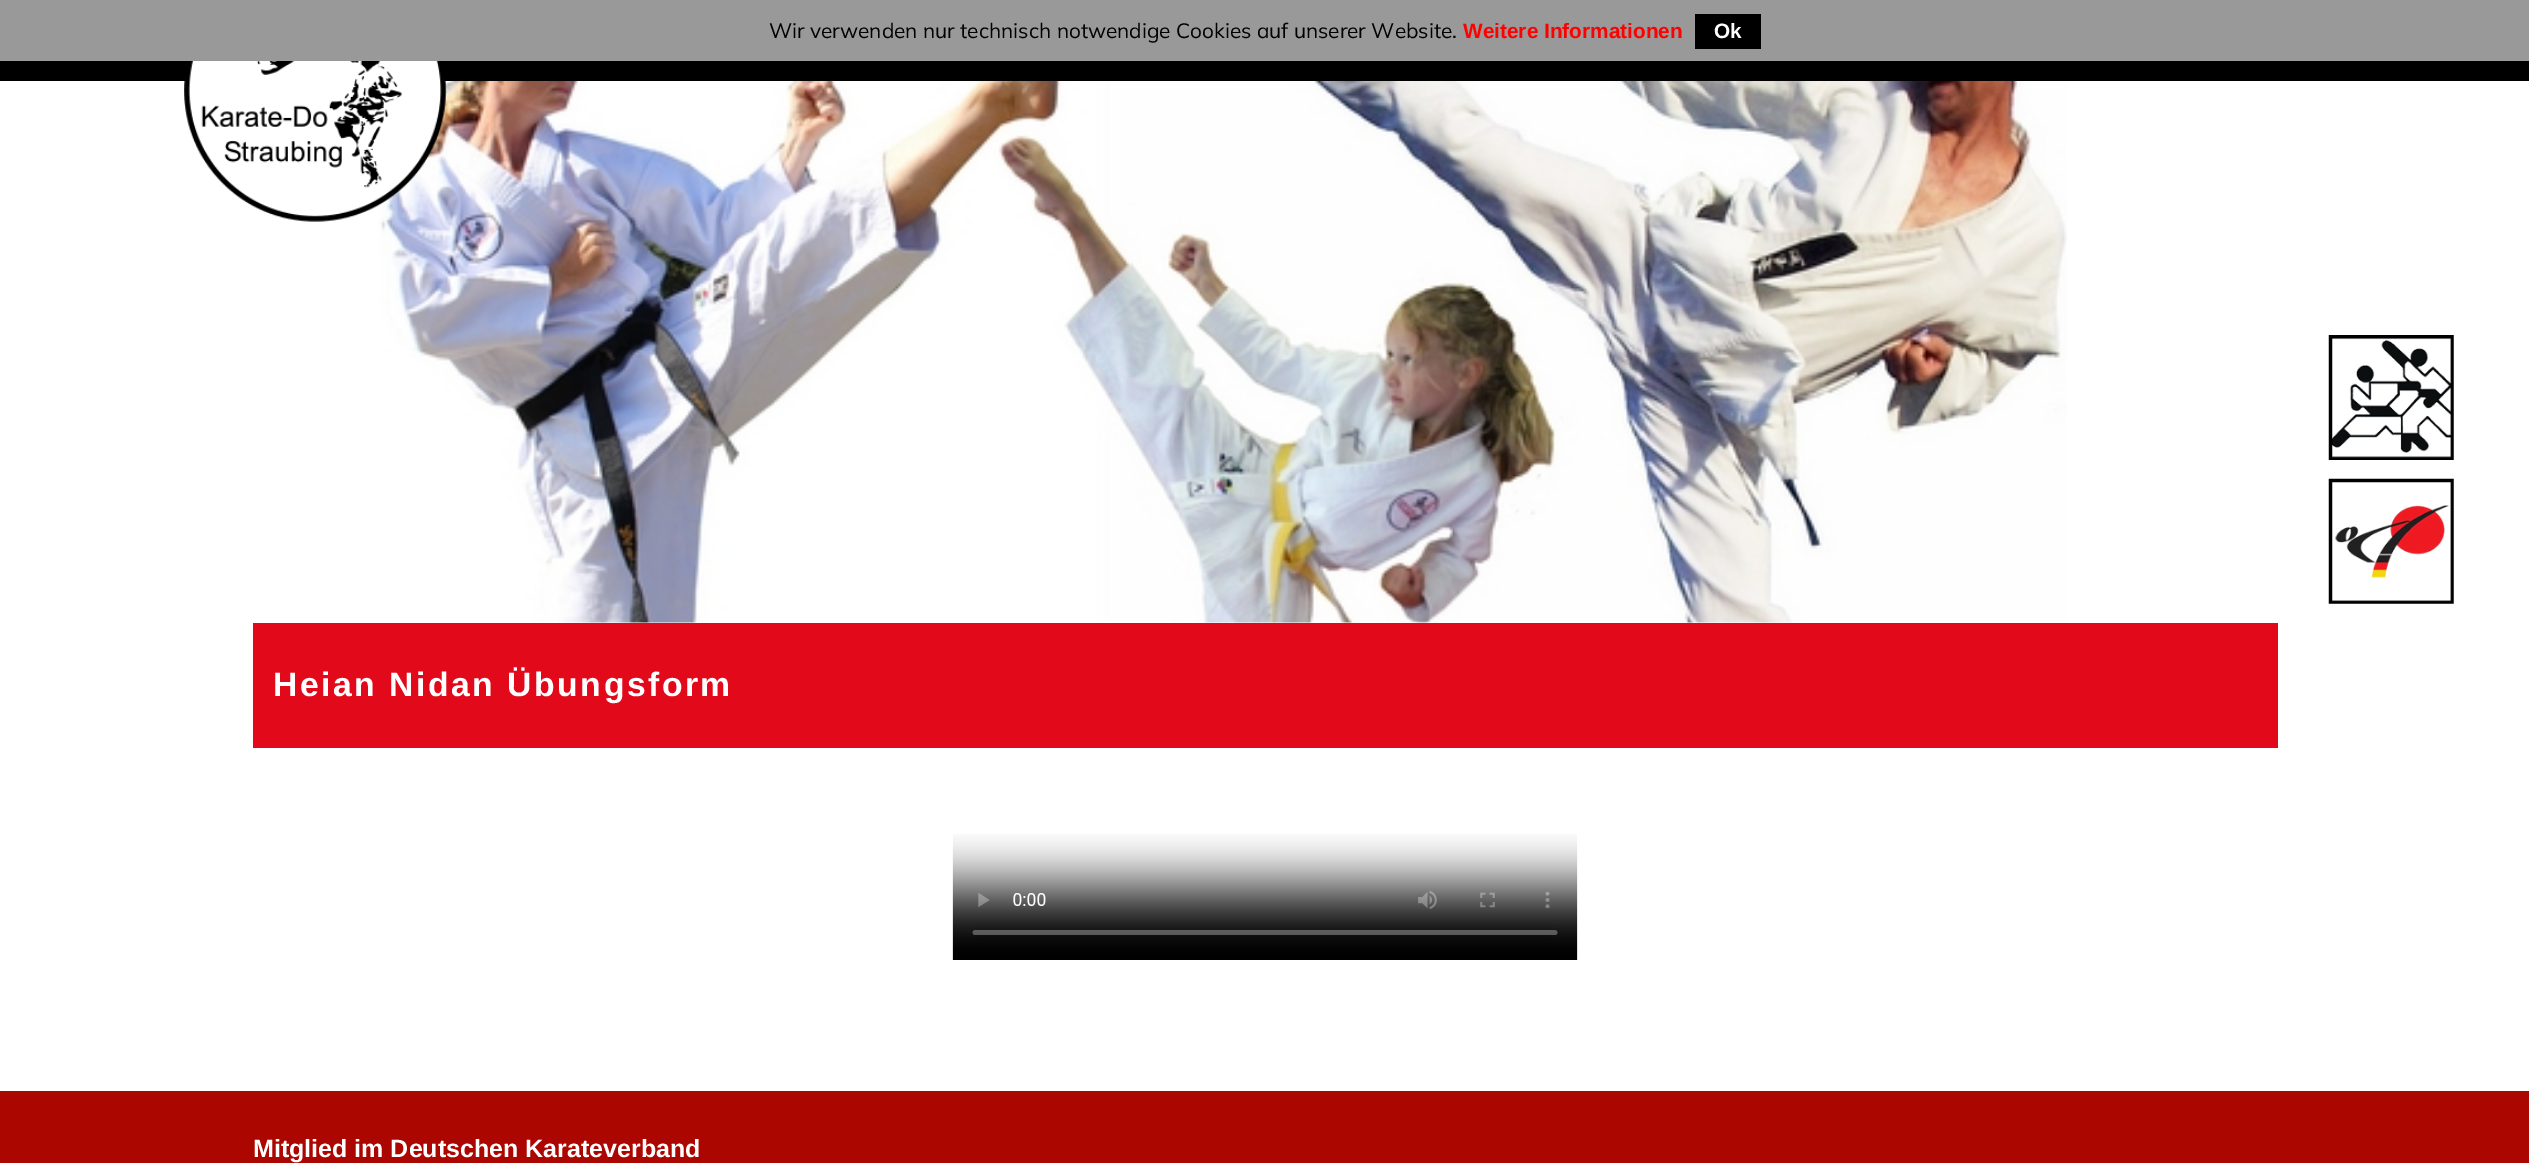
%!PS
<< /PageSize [2529 1163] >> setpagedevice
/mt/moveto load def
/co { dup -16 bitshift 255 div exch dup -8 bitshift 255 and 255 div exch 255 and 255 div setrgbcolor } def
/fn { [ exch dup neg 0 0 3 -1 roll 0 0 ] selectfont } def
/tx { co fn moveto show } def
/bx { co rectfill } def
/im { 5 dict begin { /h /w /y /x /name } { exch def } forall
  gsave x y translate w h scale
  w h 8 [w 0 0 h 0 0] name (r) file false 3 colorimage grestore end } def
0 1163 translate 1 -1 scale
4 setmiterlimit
0 0 2529 1163 16#FFFFFF bx
0 0 2529 61 16#999999 bx
1695 14 66 35 16#000000 bx
0 61 2529 20 16#000000 bx
(media/2.raw) 379 81 1688 542 im
(media/1.raw) 184 61 263 161 im
(media/3.raw) 2328 335 126 125 im
(media/4.raw) 2328 478 126 126 im
253 623 2025 125 16#E1091A bx
(media/5.raw) 952 834 626 126 im
0 1091 2529 72 16#AC0600 bx
(Wir verwenden nur technisch notwendige Cookies auf unserer Website.) 769 38 /Mulish-Regular 20.8 16#000000 tx
(Weitere Informationen) 1463 38 /LiberationSans-Bold 20.8 16#FF0000 tx
(Ok) 1714 38 /LiberationSans-Bold 20.8 16#FFFFFF tx
/LiberationSans-Bold 33.75 fn
273 696 mt 2.5 0 (Heian Nidan Übungsform) ashow
(Mitglied im Deutschen Karateverband) 253 1157 /LiberationSans-Bold 25 16#FFFFFF tx
showpage
